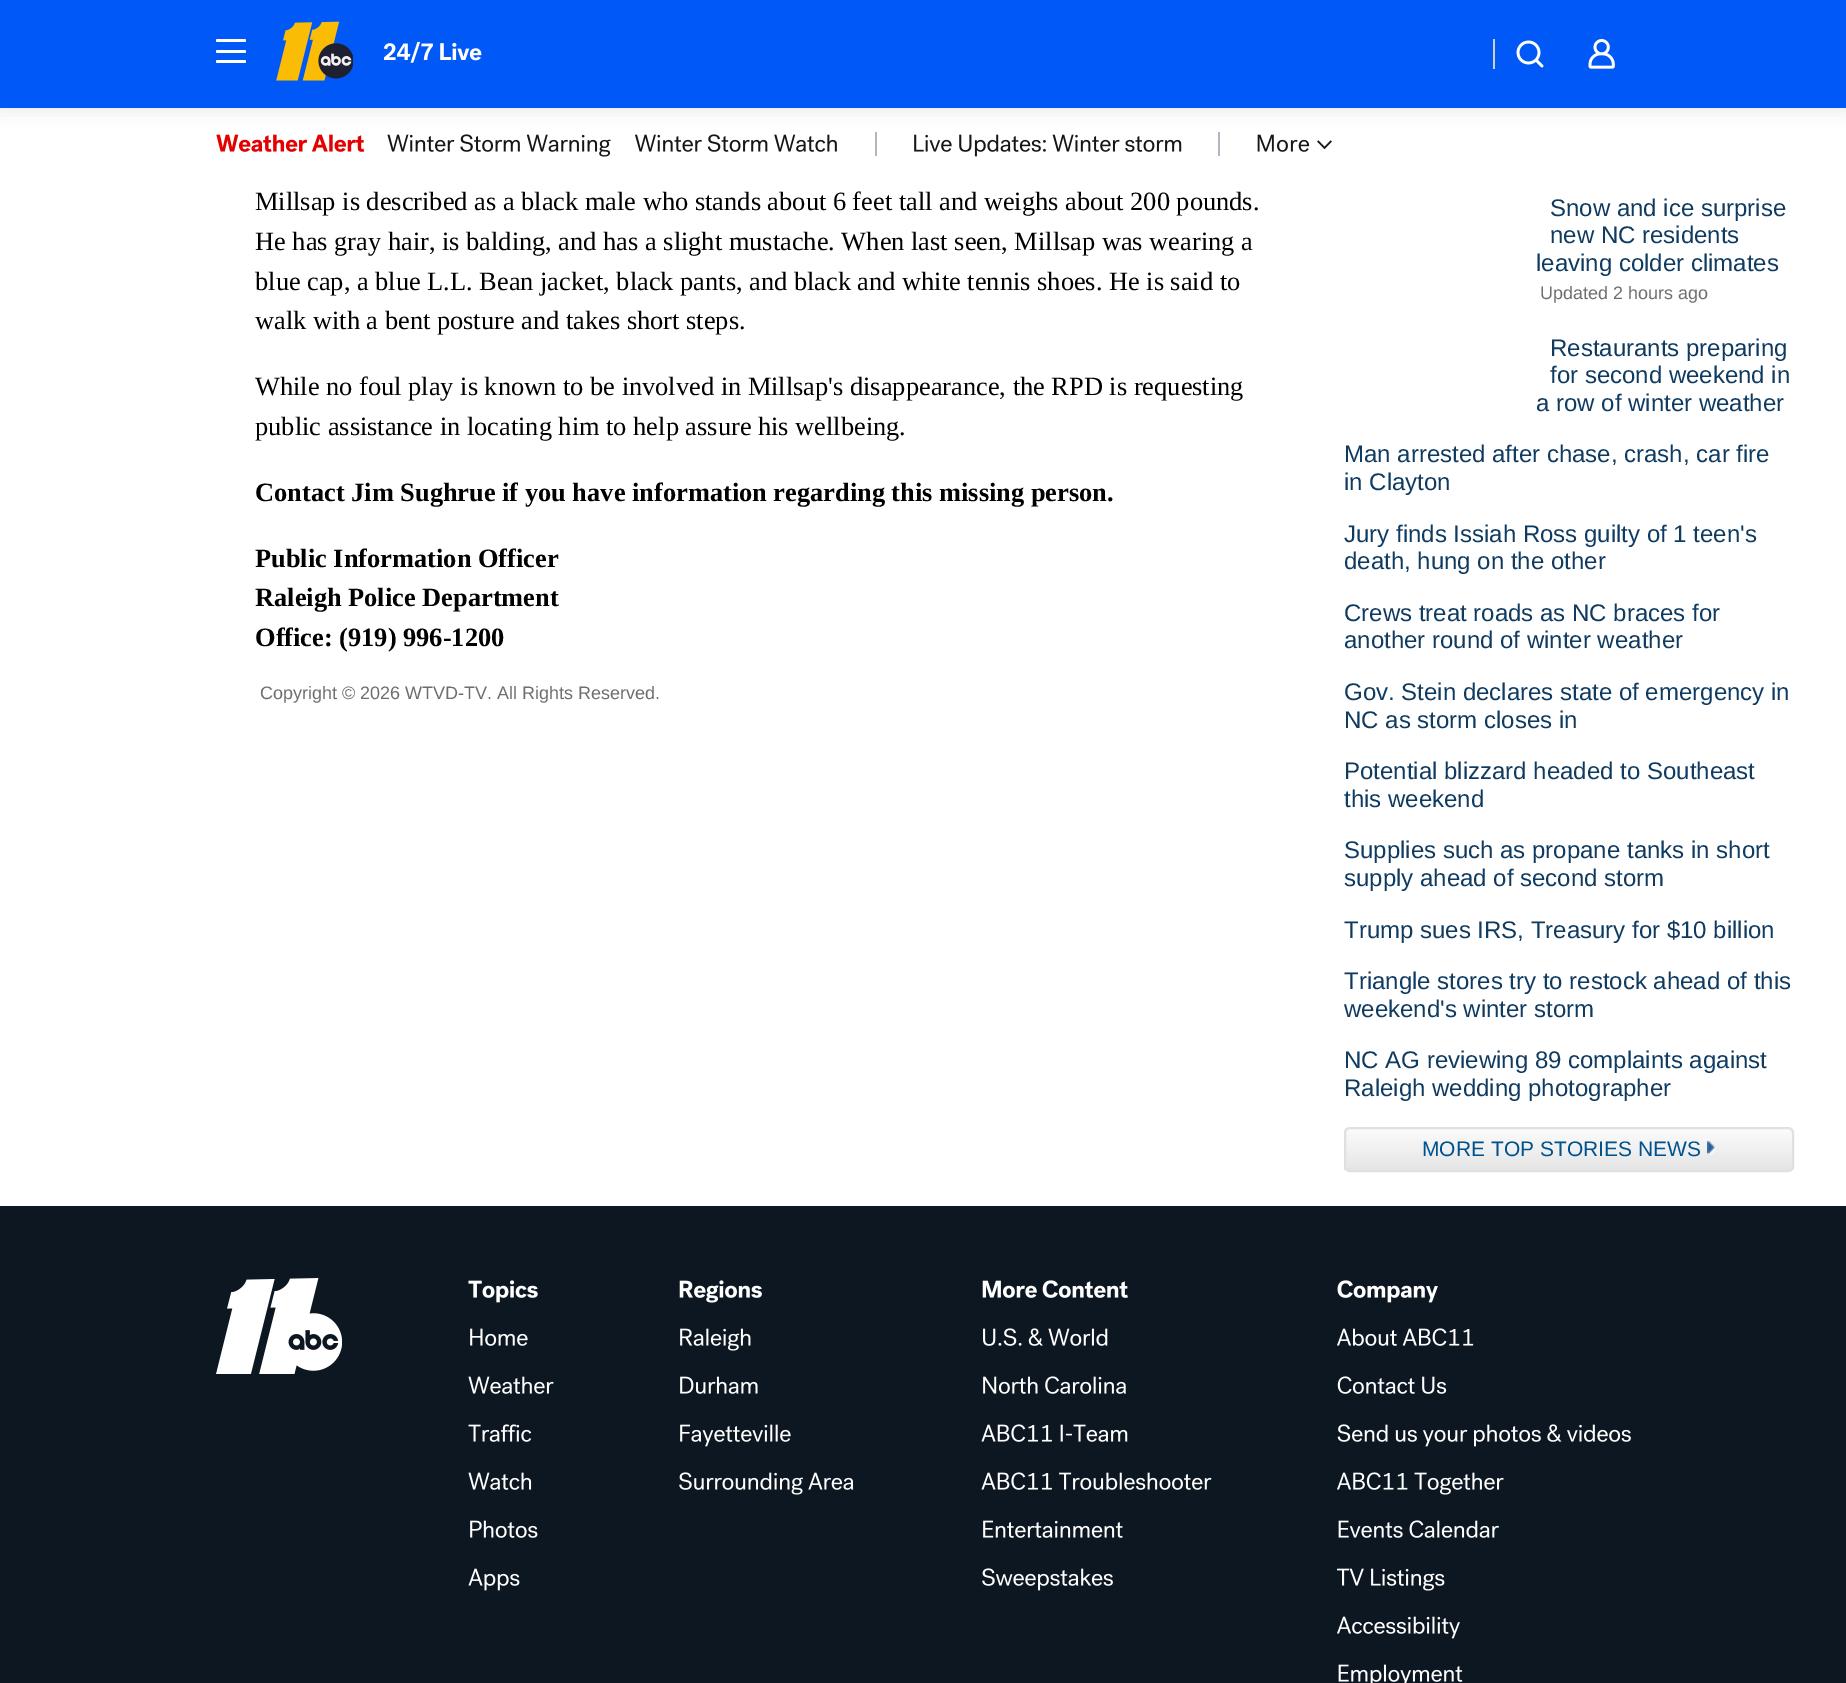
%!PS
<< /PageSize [1846 1683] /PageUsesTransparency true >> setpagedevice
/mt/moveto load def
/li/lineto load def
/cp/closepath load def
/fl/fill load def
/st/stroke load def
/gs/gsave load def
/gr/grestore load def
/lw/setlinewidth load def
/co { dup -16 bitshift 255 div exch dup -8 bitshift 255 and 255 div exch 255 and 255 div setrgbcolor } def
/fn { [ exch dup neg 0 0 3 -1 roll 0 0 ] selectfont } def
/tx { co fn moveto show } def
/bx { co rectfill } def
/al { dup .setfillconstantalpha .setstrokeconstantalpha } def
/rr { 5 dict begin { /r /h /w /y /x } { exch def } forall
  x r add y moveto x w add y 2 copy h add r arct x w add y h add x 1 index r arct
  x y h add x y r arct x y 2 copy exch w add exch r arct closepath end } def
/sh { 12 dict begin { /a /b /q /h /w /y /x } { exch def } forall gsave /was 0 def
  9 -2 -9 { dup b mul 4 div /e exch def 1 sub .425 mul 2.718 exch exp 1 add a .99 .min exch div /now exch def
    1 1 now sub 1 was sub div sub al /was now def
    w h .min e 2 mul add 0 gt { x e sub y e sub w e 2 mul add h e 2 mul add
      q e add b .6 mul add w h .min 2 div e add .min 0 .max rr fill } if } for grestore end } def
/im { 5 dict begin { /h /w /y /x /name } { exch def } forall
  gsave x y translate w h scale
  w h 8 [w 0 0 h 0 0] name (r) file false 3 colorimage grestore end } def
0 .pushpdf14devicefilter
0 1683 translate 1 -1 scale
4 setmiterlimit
0 0 1846 1683 16#FFFFFF bx
(media/5.raw) 216 134 149 18 im
(media/6.raw) 387 134 224 23 im
(media/7.raw) 635 134 202 18 im
875 132 2 24 16#B0B5BE bx
(media/8.raw) 914 134 268 23 im
1218 132 2 24 16#B0B5BE bx
(media/9.raw) 1257 134 53 18 im
16#000000 co
0 3 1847 108 0 7.5 .08 sh
0 0 1846 108 16#0058F6 bx
16#FFFFFF co
216 50 30 3 1.5 rr fl
216 39 30 3 1.5 rr fl
216 60 30 3 1.5 rr fl
(media/1.raw) 276 21 77 60 im
(media/2.raw) 383 41 99 22 im
1493 39 2 30 16#CECFCF bx
(media/3.raw) 1516 40 28 28 im
(media/4.raw) 1588 39 27 30 im
(media/10.raw) 1317 140 15 10 im
gs
1344 1127 450 45 6 rr clip newpath
gs 1344 1128 mt 1794 1128 li 1794 1170 li 1344 1170 li cp clip newpath
<< /ShadingType 2 /ColorSpace /DeviceRGB /Coords [1569 1128 1569 1170] /Extend [true true] /Function << /FunctionType 2 /Domain [0 1] /C0 [.988 .988 .988] /C1 [.898 .898 .898] /N 1 >> >> shfill gr
gr
16#E0E0E0 co
2 lw
1345 1128 448 43 5 rr st
(media/11.raw) 1707 1141 9 14 im
0 1206 1846 477 16#0D1721 bx
(media/12.raw) 216 1278 126 96 im
(media/13.raw) 468 1280 70 23 im
(media/14.raw) 470 1328 58 18 im
(media/15.raw) 468 1376 86 18 im
(media/16.raw) 468 1424 64 18 im
(media/17.raw) 468 1472 64 18 im
(media/18.raw) 470 1520 68 18 im
(media/19.raw) 468 1568 52 23 im
(media/20.raw) 679 1280 83 23 im
(media/21.raw) 680 1328 71 23 im
(media/22.raw) 680 1376 78 18 im
(media/23.raw) 680 1424 111 23 im
(media/24.raw) 679 1472 175 23 im
(media/25.raw) 982 1280 146 18 im
(media/26.raw) 983 1328 125 18 im
(media/27.raw) 983 1376 143 18 im
(media/28.raw) 981 1424 147 18 im
(media/29.raw) 981 1472 231 18 im
(media/30.raw) 983 1520 140 18 im
(media/31.raw) 982 1568 131 23 im
(media/32.raw) 1337 1280 101 23 im
(media/33.raw) 1337 1328 137 18 im
(media/34.raw) 1337 1376 110 18 im
(media/35.raw) 1337 1424 294 23 im
(media/36.raw) 1337 1472 167 23 im
(media/37.raw) 1338 1520 161 18 im
(media/38.raw) 1337 1568 108 23 im
(media/39.raw) 1337 1616 123 23 im
(media/40.raw) 1338 1664 125 19 im
(Millsap is described as a black male who stands about 6 feet tall and weighs about 200 pounds.) 255 210 /LiberationSerif-Regular 26.4 16#000000 tx
(He has gray hair, is balding, and has a slight mustache. When last seen, Millsap was wearing a) 255 250 /LiberationSerif-Regular 26.4 16#000000 tx
(blue cap, a blue L.L. Bean jacket, black pants, and black and white tennis shoes. He is said to) 255 290 /LiberationSerif-Regular 26.4 16#000000 tx
(walk with a bent posture and takes short steps.) 255 329 /LiberationSerif-Regular 26.4 16#000000 tx
(While no foul play is known to be involved in Millsap's disappearance, the RPD is requesting) 255 395 /LiberationSerif-Regular 26.4 16#000000 tx
(public assistance in locating him to help assure his wellbeing.) 255 435 /LiberationSerif-Regular 26.4 16#000000 tx
(Contact Jim Sughrue if you have information regarding this missing person.) 255 501 /LiberationSerif-Bold 26.4 16#000000 tx
(Public Information Officer) 255 567 /LiberationSerif-Bold 26.4 16#000000 tx
(Raleigh Police Department) 255 606 /LiberationSerif-Bold 26.4 16#000000 tx
(Office: \(919\) 996-1200) 255 646 /LiberationSerif-Bold 26.4 16#000000 tx
(Copyright © 2026 WTVD-TV. All Rights Reserved.) 260 699 /LiberationSans-Regular 18 16#6E6E6E tx
(Snow and ice surprise) 1550 216 /LiberationSans-Regular 24 16#103B61 tx
(new NC residents) 1550 243 /LiberationSans-Regular 24 16#103B61 tx
(leaving colder climates) 1536 271 /LiberationSans-Regular 24 16#103B61 tx
(Updated 2 hours ago) 1540 299 /LiberationSans-Regular 18 16#6E6E6E tx
(Restaurants preparing) 1550 356 /LiberationSans-Regular 24 16#103B61 tx
(for second weekend in) 1550 383 /LiberationSans-Regular 24 16#103B61 tx
(a row of winter weather) 1536 411 /LiberationSans-Regular 24 16#103B61 tx
(Man arrested after chase, crash, car fire) 1344 462 /LiberationSans-Regular 24 16#103B61 tx
(in Clayton) 1344 490 /LiberationSans-Regular 24 16#103B61 tx
(Jury finds Issiah Ross guilty of 1 teen's) 1344 542 /LiberationSans-Regular 24 16#103B61 tx
(death, hung on the other) 1344 569 /LiberationSans-Regular 24 16#103B61 tx
(Crews treat roads as NC braces for) 1344 621 /LiberationSans-Regular 24 16#103B61 tx
(another round of winter weather) 1344 648 /LiberationSans-Regular 24 16#103B61 tx
(Gov. Stein declares state of emergency in) 1344 700 /LiberationSans-Regular 24 16#103B61 tx
(NC as storm closes in) 1344 728 /LiberationSans-Regular 24 16#103B61 tx
(Potential blizzard headed to Southeast) 1344 779 /LiberationSans-Regular 24 16#103B61 tx
(this weekend) 1344 807 /LiberationSans-Regular 24 16#103B61 tx
(Supplies such as propane tanks in short) 1344 858 /LiberationSans-Regular 24 16#103B61 tx
(supply ahead of second storm) 1344 886 /LiberationSans-Regular 24 16#103B61 tx
(Trump sues IRS, Treasury for $10 billion) 1344 938 /LiberationSans-Regular 24 16#103B61 tx
(Triangle stores try to restock ahead of this) 1344 989 /LiberationSans-Regular 24 16#103B61 tx
(weekend's winter storm) 1344 1017 /LiberationSans-Regular 24 16#103B61 tx
(NC AG reviewing 89 complaints against) 1344 1068 /LiberationSans-Regular 24 16#103B61 tx
(Raleigh wedding photographer) 1344 1096 /LiberationSans-Regular 24 16#103B61 tx
(MORE TOP STORIES NEWS) 1422 1156 /LiberationSans-Regular 21 16#00528D tx
.poppdf14devicefilter showpage
